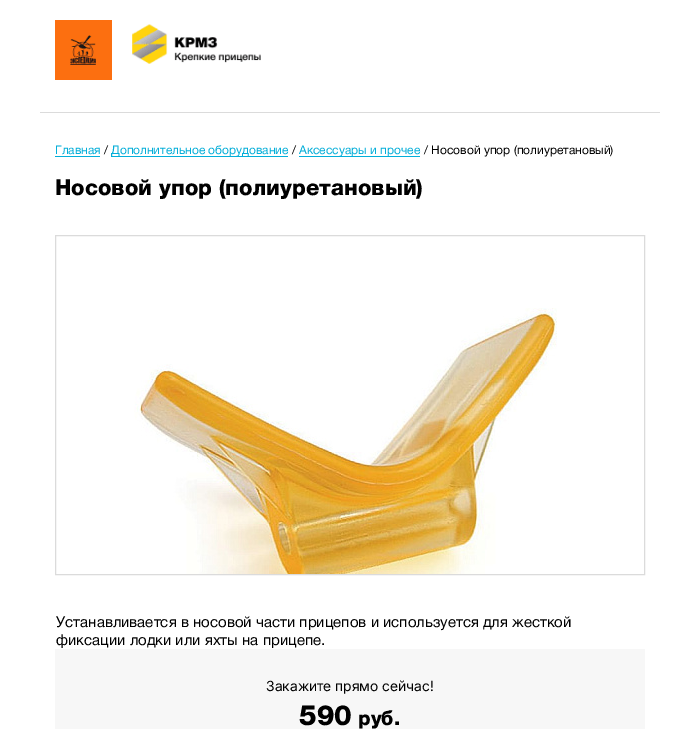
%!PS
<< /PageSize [699 729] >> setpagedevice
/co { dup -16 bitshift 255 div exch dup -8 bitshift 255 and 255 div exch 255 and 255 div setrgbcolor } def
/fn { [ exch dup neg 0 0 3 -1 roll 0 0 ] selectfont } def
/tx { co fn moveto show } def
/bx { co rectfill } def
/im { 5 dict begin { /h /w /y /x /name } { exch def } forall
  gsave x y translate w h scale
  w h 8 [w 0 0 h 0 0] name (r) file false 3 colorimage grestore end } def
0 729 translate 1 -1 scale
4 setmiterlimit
0 0 699 729 16#FFFFFF bx
55 20 57 60 16#FC6F10 bx
(media/1.raw) 70 35 26 30 im
(media/2.raw) 132 24 129 40 im
40 112 620 1 16#DBDBDB bx
55 156 45 1 16#03AED9 bx
111 156 177 1 16#03AED9 bx
299 156 121 1 16#03AED9 bx
16#DBDBDB co
55.5 235.5 589 339 rectstroke
(media/3.raw) 134 308 423 266 im
55 649 590 80 16#F7F7F7 bx
(Главная) 55 154 /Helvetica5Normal-Regular 12 16#03AED9 tx
(/) 104 154 /Helvetica5Normal-Regular 12 16#000000 tx
(Дополнительное оборудование) 111 154 /Helvetica5Normal-Regular 12 16#03AED9 tx
(/) 292 154 /Helvetica5Normal-Regular 12 16#000000 tx
(Аксессуары и прочее) 299 154 /Helvetica5Normal-Regular 12 16#03AED9 tx
(/ Носовой упор \(полиуретановый\)) 424 154 /Helvetica5Normal-Regular 12 16#000000 tx
(Носовой упор \(полиуретановый\)) 55 195 /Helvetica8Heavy-Black 22 16#000000 tx
(Устанавливается в носовой части прицепов и используется для жесткой) 56 627 /Helvetica5Normal-Regular 15 16#000000 tx
(фиксации лодки или яхты на прицепе.) 56 645 /Helvetica5Normal-Regular 15 16#000000 tx
(Закажите прямо сейчас!) 266 691 /Inter-Regular 14 16#000000 tx
(590) 299 725 /Helvetica8Heavy-Black 28 16#000000 tx
(руб.) 358 725 /Helvetica8Heavy-Black 20 16#000000 tx
showpage
